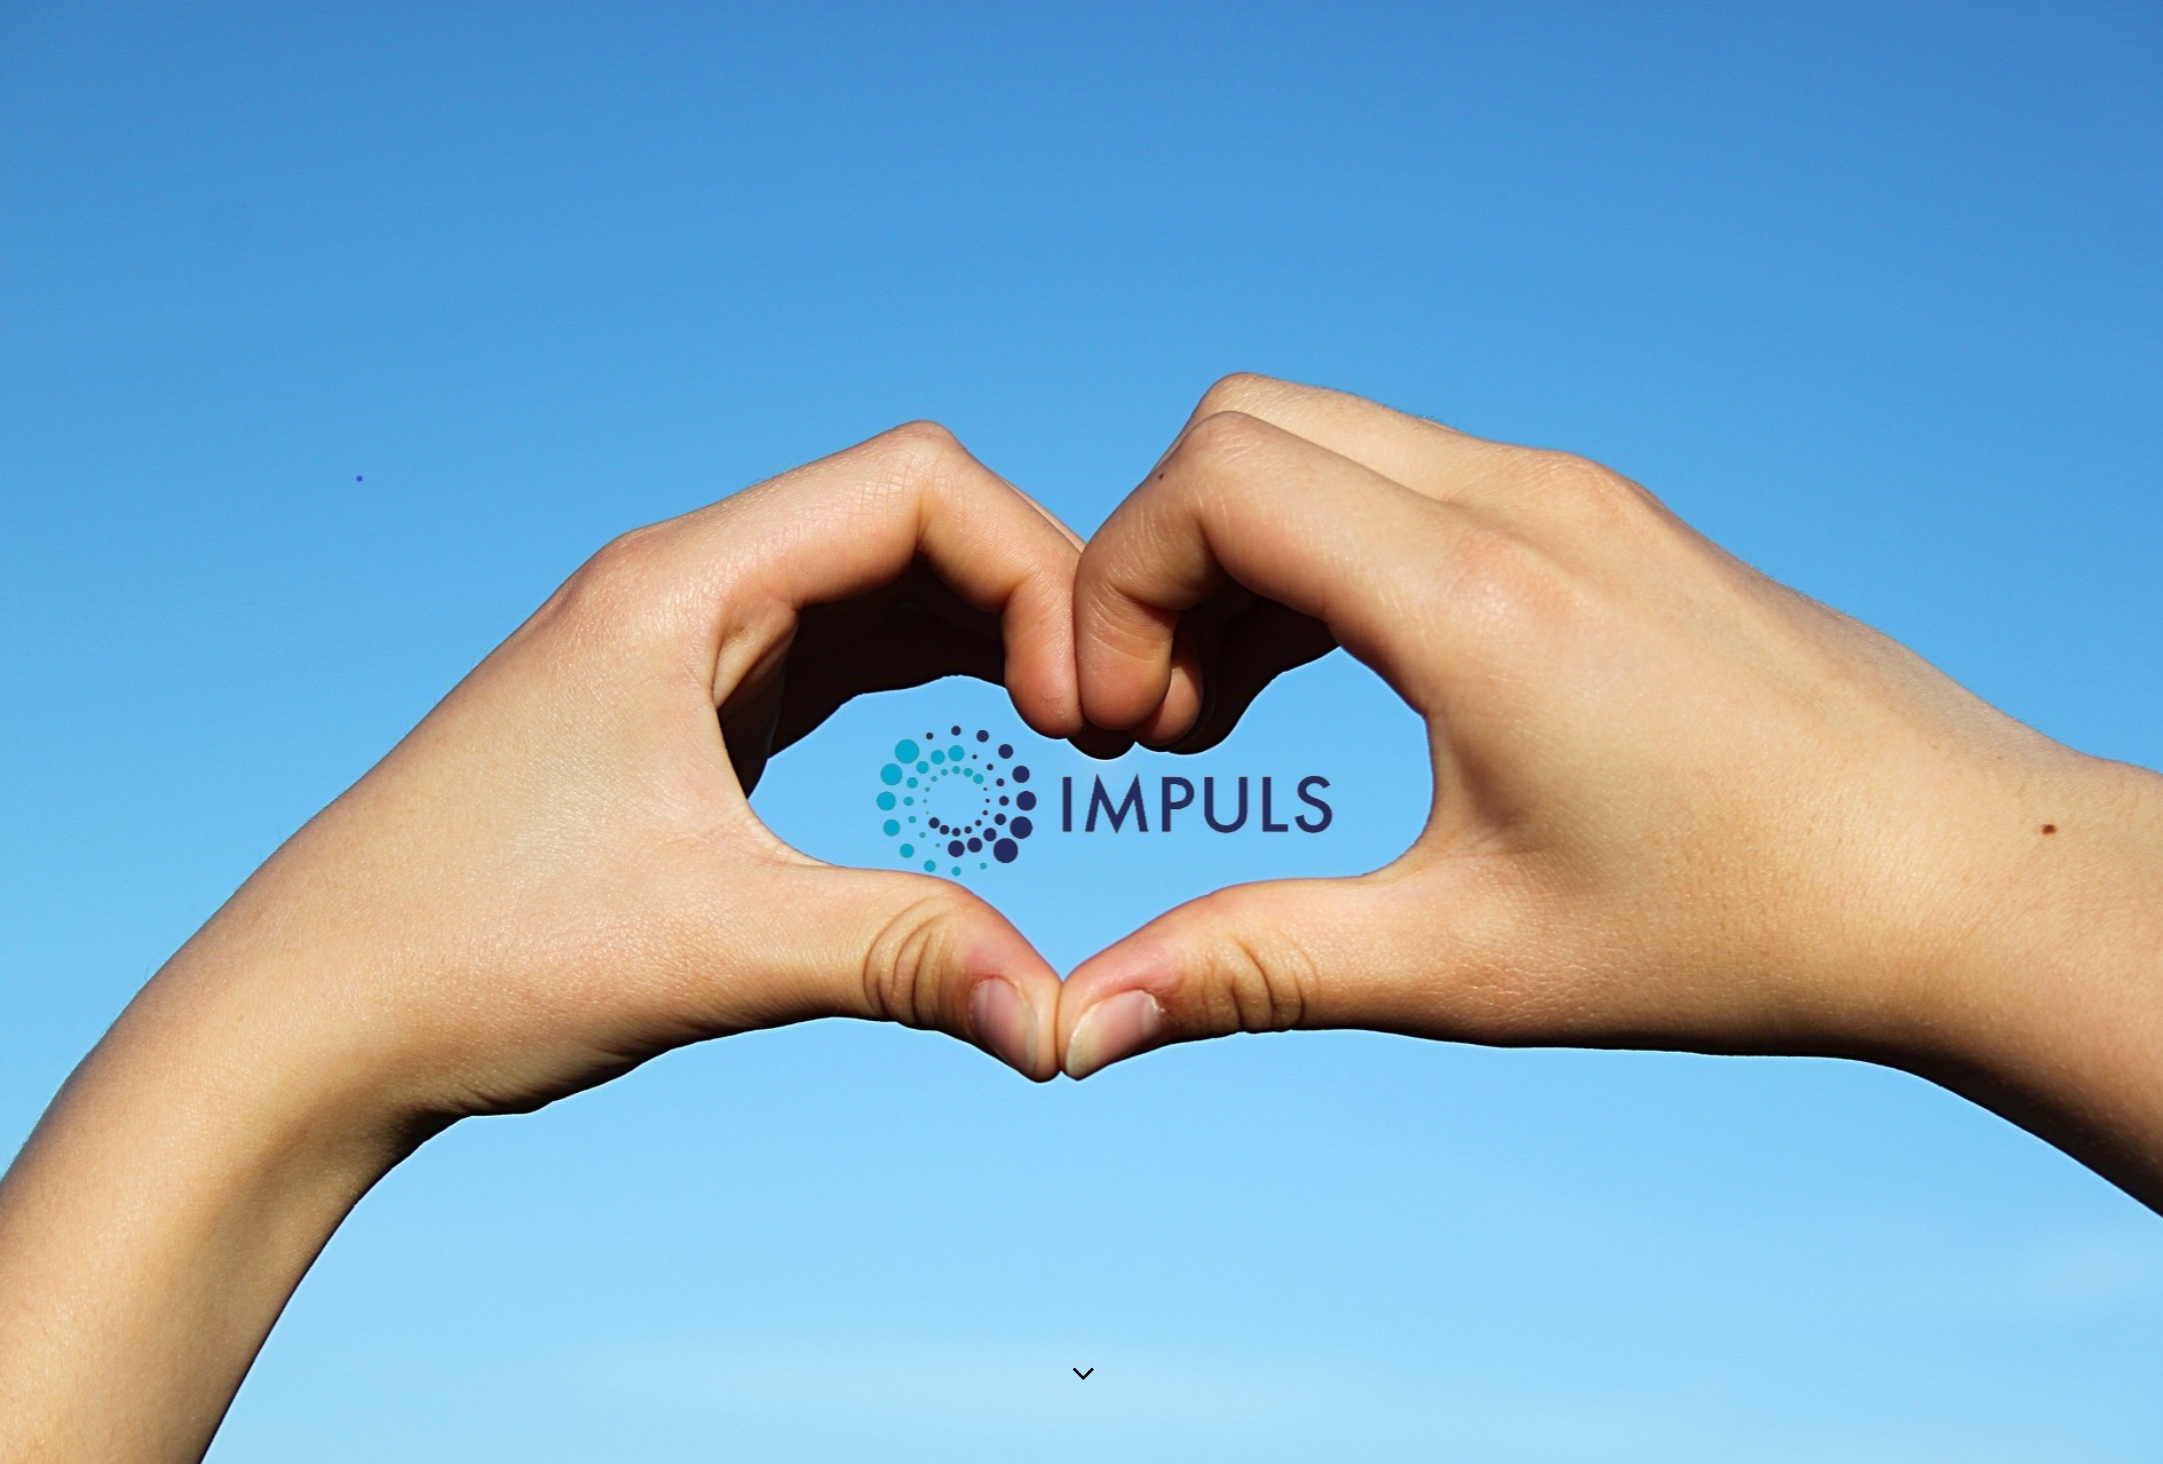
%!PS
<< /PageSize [2163 1464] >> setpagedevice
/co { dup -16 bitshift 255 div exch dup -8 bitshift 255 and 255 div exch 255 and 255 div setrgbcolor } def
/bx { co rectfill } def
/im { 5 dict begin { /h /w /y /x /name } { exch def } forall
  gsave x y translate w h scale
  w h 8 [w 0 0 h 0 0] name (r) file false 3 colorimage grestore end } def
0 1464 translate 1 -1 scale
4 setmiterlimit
0 0 2163 1464 16#FFFFFF bx
(media/1.raw) 0 0 2163 1464 im
(media/2.raw) 1072 1367 22 13 im
showpage
